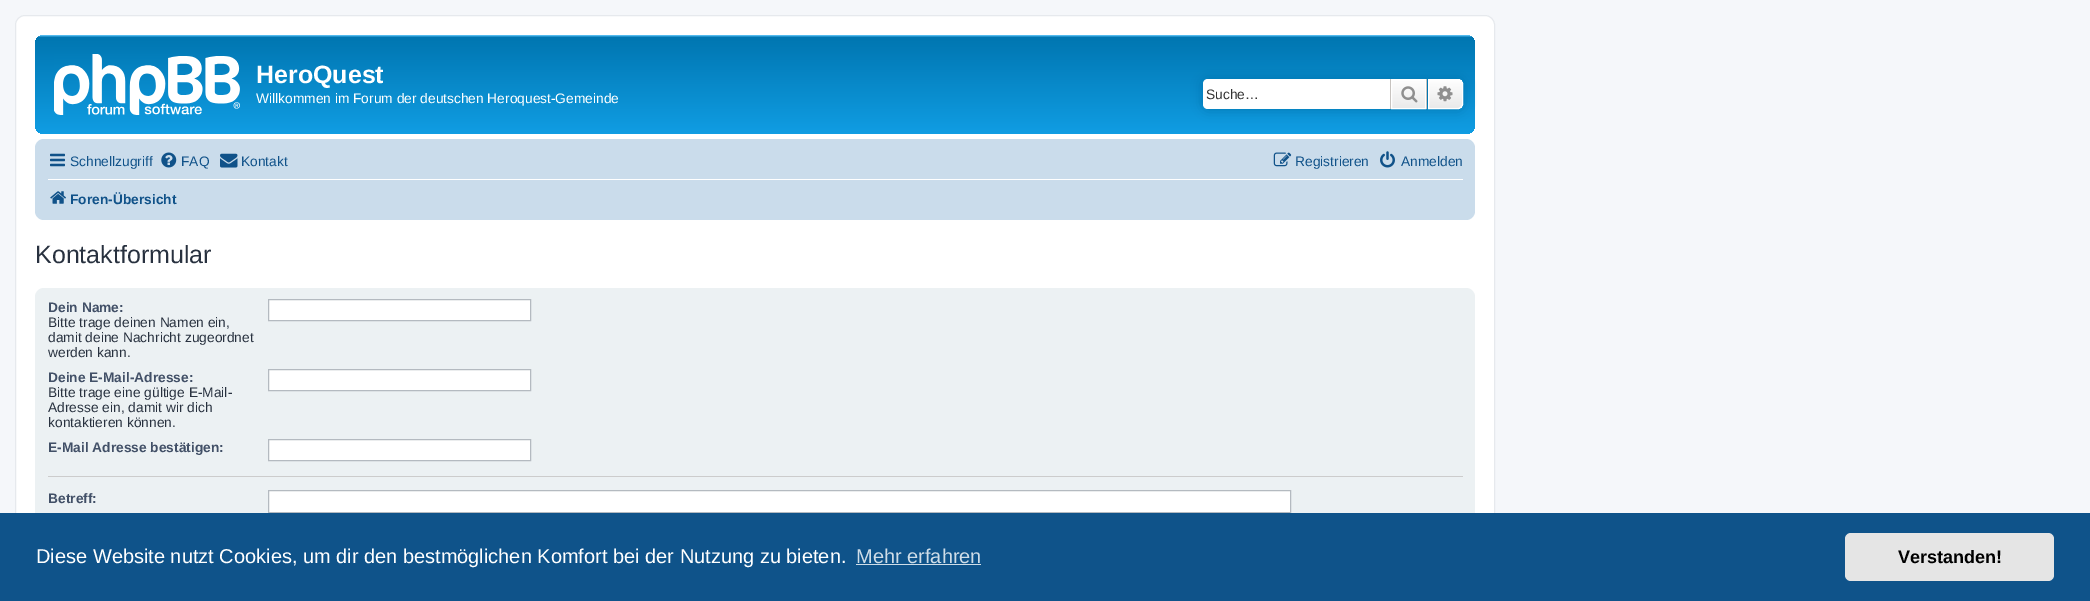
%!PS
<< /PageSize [2090 601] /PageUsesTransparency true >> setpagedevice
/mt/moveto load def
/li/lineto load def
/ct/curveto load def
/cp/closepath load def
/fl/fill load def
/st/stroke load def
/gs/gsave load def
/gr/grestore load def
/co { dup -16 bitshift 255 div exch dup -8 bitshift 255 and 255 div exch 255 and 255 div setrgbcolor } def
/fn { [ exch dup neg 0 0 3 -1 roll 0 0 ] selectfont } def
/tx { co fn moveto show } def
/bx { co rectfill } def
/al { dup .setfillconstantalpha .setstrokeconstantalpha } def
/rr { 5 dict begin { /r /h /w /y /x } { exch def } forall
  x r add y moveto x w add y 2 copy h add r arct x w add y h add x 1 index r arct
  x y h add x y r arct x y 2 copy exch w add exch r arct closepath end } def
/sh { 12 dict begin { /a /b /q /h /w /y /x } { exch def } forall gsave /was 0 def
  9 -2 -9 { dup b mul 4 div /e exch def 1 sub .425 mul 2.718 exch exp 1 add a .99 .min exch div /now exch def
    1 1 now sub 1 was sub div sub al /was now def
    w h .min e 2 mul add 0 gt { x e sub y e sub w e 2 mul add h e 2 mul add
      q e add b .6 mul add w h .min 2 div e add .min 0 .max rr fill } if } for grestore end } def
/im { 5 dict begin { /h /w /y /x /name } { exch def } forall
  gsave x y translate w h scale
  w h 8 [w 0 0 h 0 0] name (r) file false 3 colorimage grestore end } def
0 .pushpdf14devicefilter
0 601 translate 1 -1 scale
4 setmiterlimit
0 0 2090 601 16#F5F7FA bx
16#FFFFFF co
15.5 15.5 1479 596 9.5 rr gs fl gr
16#E6E9ED co
st
gs 35 35 1440 99 9 rr clip newpath
<< /ShadingType 2 /ColorSpace /DeviceRGB /Coords [755 35 755 150] /Extend [true true] /Function << /FunctionType 3 /Domain [0 1] /Functions [<< /FunctionType 2 /Domain [0 1] /C0 [.416 .808 1] /C1 [0 .463 .694] /N 1 >> << /FunctionType 2 /Domain [0 1] /C0 [0 .463 .694] /C1 [.071 .639 .922] /N 1 >>] /Bounds [.02] /Encode [0 1 0 1] >> >> shfill gr
(media/1.raw) 54 54 186 61 im
16#0075B0 co
1203 79 260 30 5 6 1 sh
16#FFFFFF co
1208 79 mt 1390 79 li 1390 109 li 1208 109 li 1205 109 1203 107 1203 104 ct 1203 84 li 1203 81 1205 79 1208 79 ct cp fl
gs 1392 80 mt 1425 80 li 1425 108 li 1392 108 li cp clip newpath
<< /ShadingType 2 /ColorSpace /DeviceRGB /Coords [1409 79 1409 109] /Extend [true true] /Function << /FunctionType 2 /Domain [0 1] /C0 [1 1 1] /C1 [.914 .914 .914] /N 1 >> >> shfill gr
1391.5 79.5 34 29 rectstroke
1426 79 1 30 16#C7C3BF bx
1390 79 1 30 16#C7C3BF bx
(media/2.raw) 1401 86 17 17 im
gs 1428.5 79.5 mt 1458 79.5 li 1460.5 79.5 1462.5 81.5 1462.5 84 ct 1462.5 104 li 1462.5 106.5 1460.5 108.5 1458 108.5 ct 1428.5 108.5 li cp clip newpath
<< /ShadingType 2 /ColorSpace /DeviceRGB /Coords [1445 79 1445 109] /Extend [true true] /Function << /FunctionType 2 /Domain [0 1] /C0 [1 1 1] /C1 [.914 .914 .914] /N 1 >> >> shfill gr
16#FFFFFF co
1428.5 79.5 mt 1458 79.5 li 1460.5 79.5 1462.5 81.5 1462.5 84 ct 1462.5 104 li 1462.5 106.5 1460.5 108.5 1458 108.5 ct 1428.5 108.5 li cp st
(media/3.raw) 1437 86 16 16 im
16#CADCEB co
35 139 1440 81 9 rr fl
(media/4.raw) 50 153 15 14 im
(media/5.raw) 161 152 16 16 im
(media/6.raw) 220 153 18 15 im
(media/7.raw) 1273 152 19 15 im
(media/8.raw) 1380 151 15 17 im
48 179 1415 1 16#FFFFFF bx
(media/9.raw) 50 191 16 13 im
16#ECF1F3 co
35 288 1440 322 9 rr fl
16#FFFFFF co
268.5 299.5 mt 530.5 299.5 li 530.5 320.5 li 268.5 320.5 li cp gs fl gr
16#B4BAC0 co
st
16#FFFFFF co
268.5 369.5 mt 530.5 369.5 li 530.5 390.5 li 268.5 390.5 li cp gs fl gr
16#B4BAC0 co
st
16#FFFFFF co
268.5 439.5 mt 530.5 439.5 li 530.5 460.5 li 268.5 460.5 li cp gs fl gr
16#B4BAC0 co
st
48 476 1415 1 16#CCCCCC bx
16#FFFFFF co
268.5 490.5 mt 1290.5 490.5 li 1290.5 512.5 li 268.5 512.5 li cp gs fl gr
16#B4BAC0 co
st
0 513 2090 88 16#0F538A bx
856 564 125 1 16#CFDDE8 bx
16#E5E5E5 co
1845 533 209 48 6 rr fl
(HeroQuest) 256 83 /LiberationSans-Bold 25 16#FFFFFF tx
(Willkommen im Forum der deutschen Heroquest-Gemeinde) 256 103 /LiberationSans-Regular 13.75 16#FFFFFF tx
(Suche…) 1206 99 /LiberationSans-Regular 13.75 16#333333 tx
(Schnellzugriff) 70 166 /LiberationSans-Regular 13.75 16#105289 tx
(FAQ) 181 166 /LiberationSans-Regular 13.75 16#105289 tx
(Kontakt) 241 166 /LiberationSans-Regular 13.75 16#105289 tx
(Registrieren) 1295 166 /LiberationSans-Regular 13.75 16#105289 tx
(Anmelden) 1401 166 /LiberationSans-Regular 13.75 16#105289 tx
(Foren-Übersicht) 70 204 /LiberationSans-Bold 13.75 16#105289 tx
(Kontaktformular) 35 263 /LiberationSans-Regular 25 16#28313F tx
(Dein Name:) 48 312 /LiberationSans-Bold 13.75 16#425067 tx
(Bitte trage deinen Namen ein,) 48 327 /LiberationSans-Regular 13.75 16#28313F tx
(damit deine Nachricht zugeordnet) 48 342 /LiberationSans-Regular 13.75 16#28313F tx
(werden kann.) 48 357 /LiberationSans-Regular 13.75 16#28313F tx
(Deine E-Mail-Adresse:) 48 382 /LiberationSans-Bold 13.75 16#425067 tx
(Bitte trage eine gültige E-Mail-) 48 397 /LiberationSans-Regular 13.75 16#28313F tx
(Adresse ein, damit wir dich) 48 412 /LiberationSans-Regular 13.75 16#28313F tx
(kontaktieren können.) 48 427 /LiberationSans-Regular 13.75 16#28313F tx
(E-Mail Adresse bestätigen:) 48 452 /LiberationSans-Bold 13.75 16#425067 tx
(Betreff:) 48 503 /LiberationSans-Bold 13.75 16#425067 tx
(Diese Website nutzt Cookies, um dir den bestmöglichen Komfort bei der Nutzung zu bieten.) 36 563 /LiberationSans-Regular 20 16#FFFFFF tx
(Mehr erfahren) 856 563 /LiberationSans-Regular 20 16#CFDDE8 tx
(Verstanden!) 1898 563 /LiberationSans-Bold 18 16#000000 tx
.poppdf14devicefilter showpage
